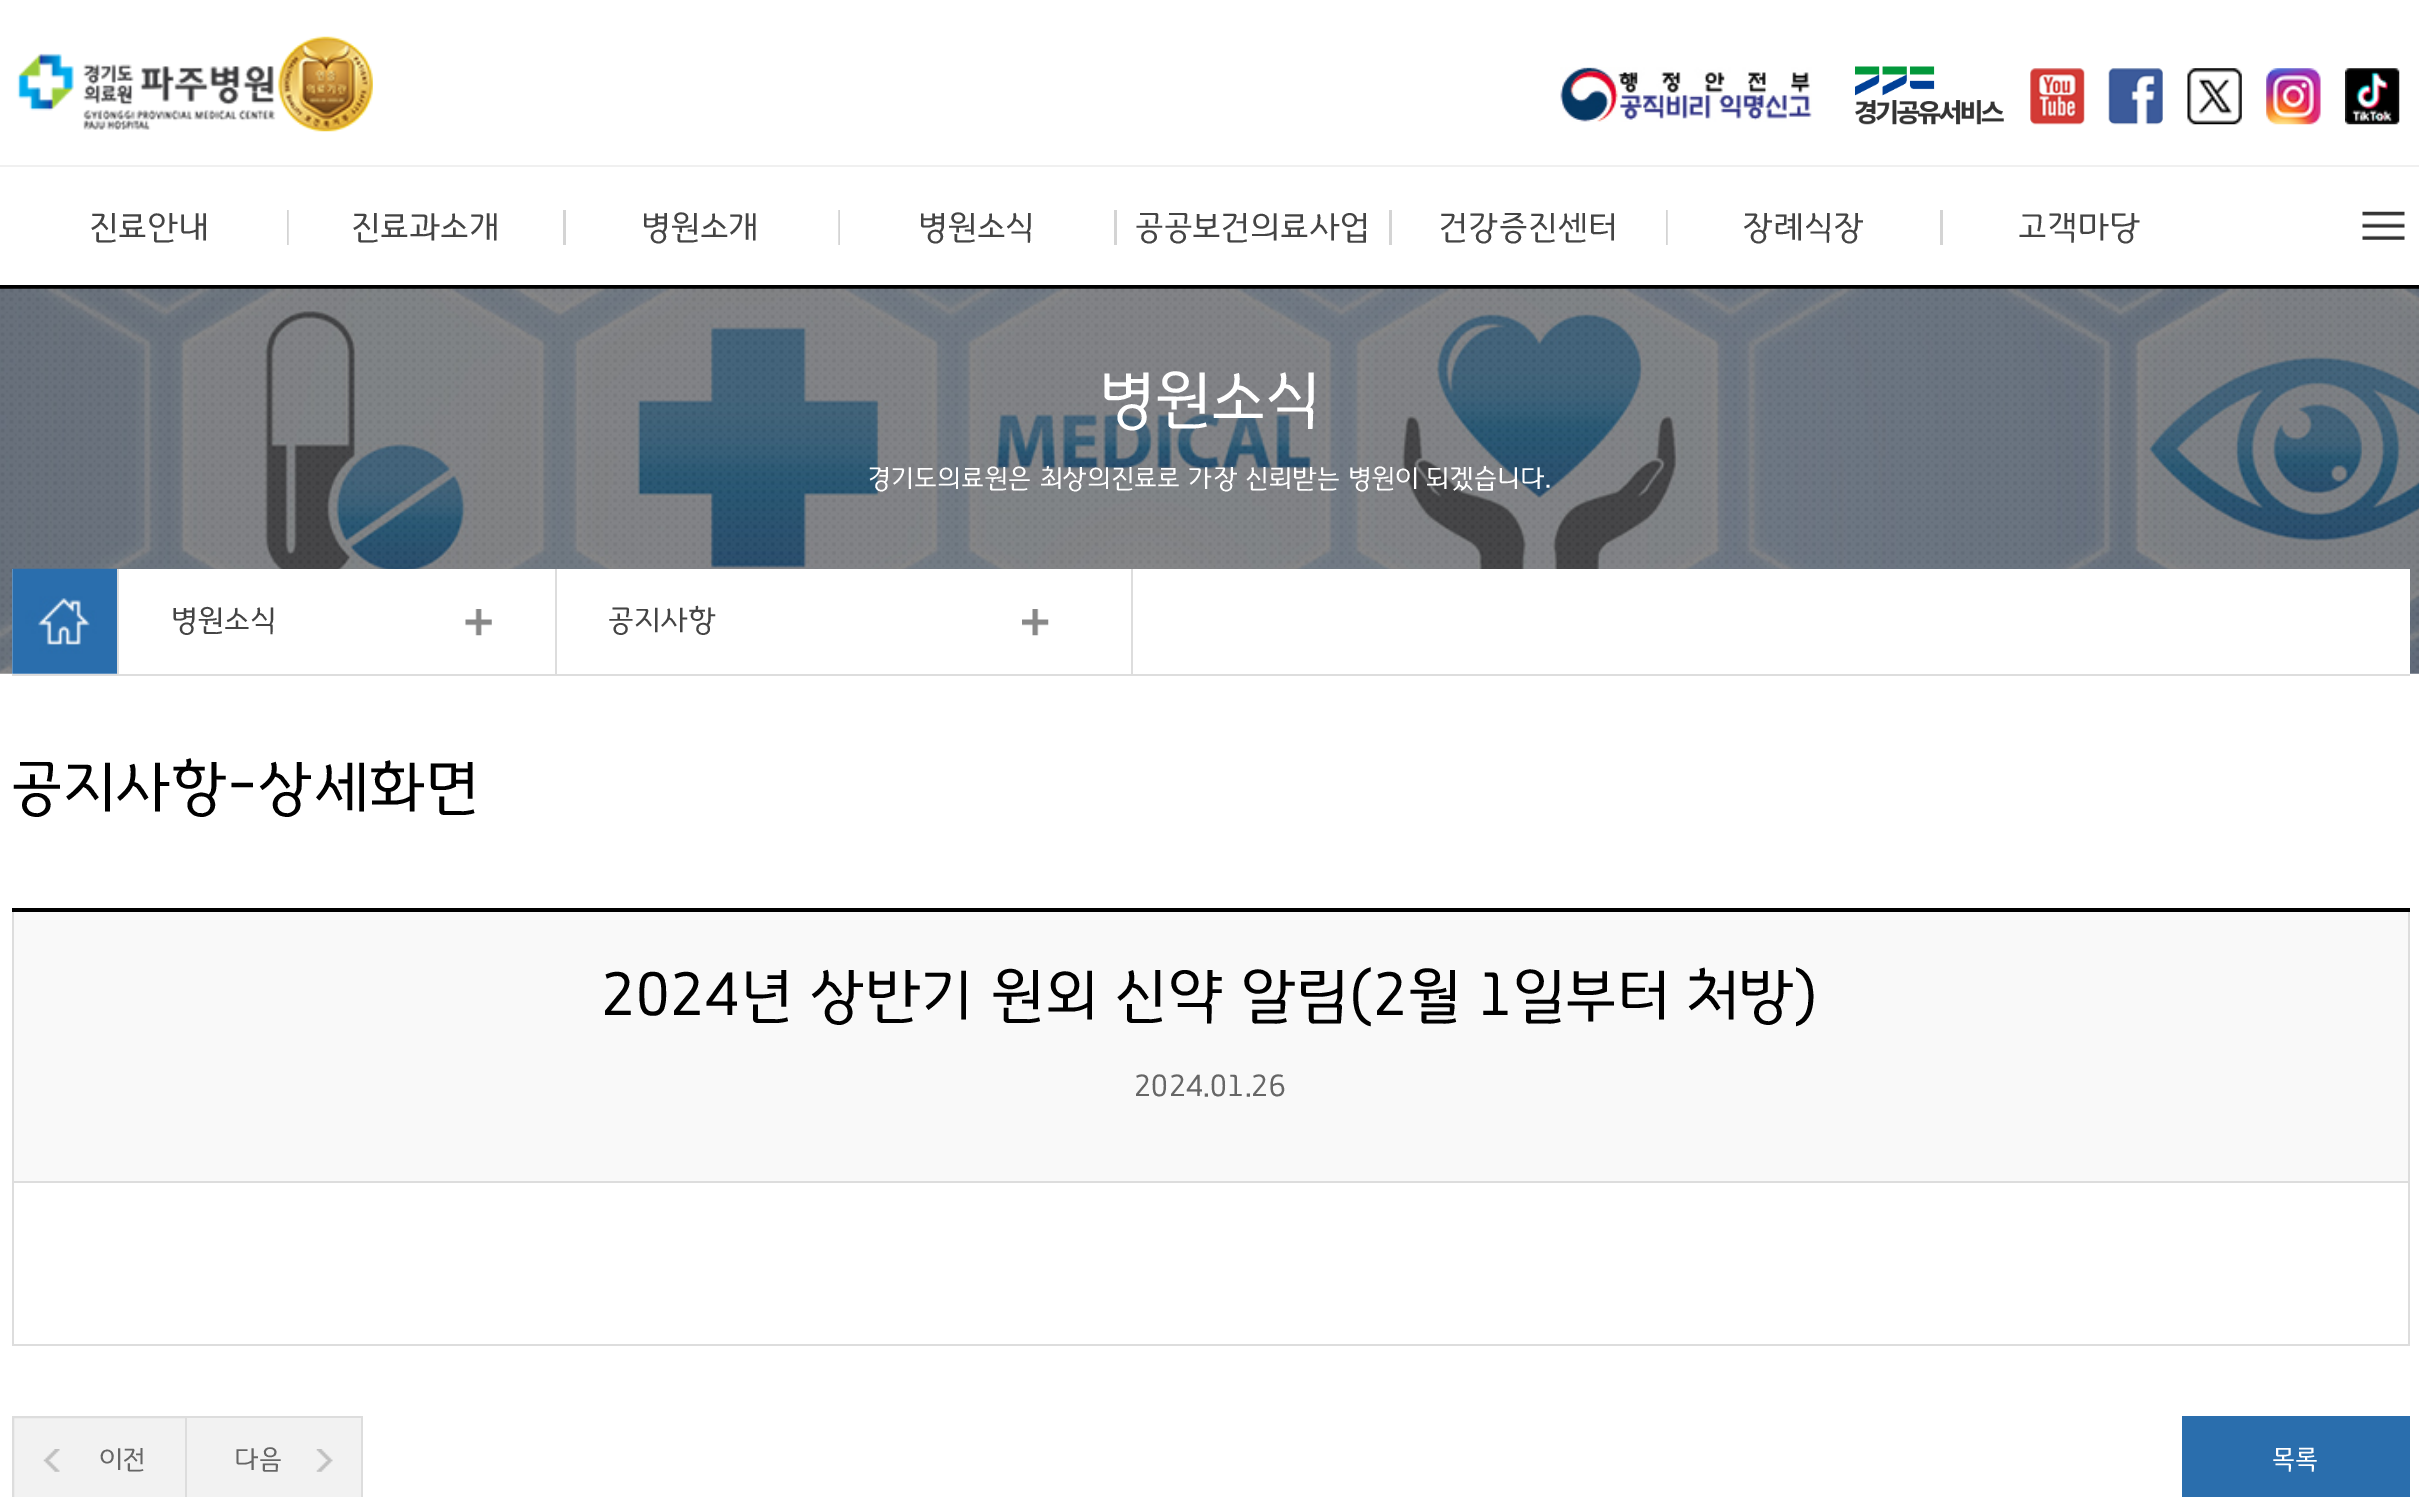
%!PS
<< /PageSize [2419 1497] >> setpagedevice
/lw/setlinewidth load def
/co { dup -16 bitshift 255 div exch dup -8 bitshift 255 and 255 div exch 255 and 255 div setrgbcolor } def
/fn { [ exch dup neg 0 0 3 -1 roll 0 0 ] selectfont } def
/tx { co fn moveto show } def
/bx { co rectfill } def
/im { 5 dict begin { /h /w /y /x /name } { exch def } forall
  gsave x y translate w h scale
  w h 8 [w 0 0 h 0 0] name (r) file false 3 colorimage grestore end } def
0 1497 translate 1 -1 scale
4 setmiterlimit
0 0 2419 1497 16#FFFFFF bx
0 285 2419 4 16#000000 bx
0 165 2419 2 16#F0F0F0 bx
(media/1.raw) 17 36 356 96 im
(media/2.raw) 1560 67 252 55 im
(media/3.raw) 1855 66 149 59 im
(media/4.raw) 2030 68 55 57 im
(media/5.raw) 2108 68 55 57 im
(media/6.raw) 2187 68 55 57 im
(media/7.raw) 2266 68 55 57 im
(media/8.raw) 2345 68 55 57 im
(media/9.raw) 287 210 2 35 im
563 210 3 35 16#D4D4D4 bx
(media/10.raw) 838 210 2 35 im
1114 210 3 35 16#D4D4D4 bx
1389 210 3 35 16#D4D4D4 bx
(media/9.raw) 1666 210 2 35 im
1940 210 3 35 16#D4D4D4 bx
(media/11.raw) 2362 211 43 29 im
(media/12.raw) 0 288 2419 386 im
12 569 2398 105 16#FFFFFF bx
12 674 2398 2 16#DDDDDD bx
(media/13.raw) 12 568 106 106 im
(media/14.raw) 465 609 27 27 im
117 569 2 105 16#DDDDDD bx
(media/15.raw) 1022 609 27 27 im
1131 569 2 105 16#DDDDDD bx
555 569 2 105 16#DDDDDD bx
12 1181 2398 2 16#DDDDDD bx
2408 910 2 436 16#DDDDDD bx
12 1344 2398 2 16#DDDDDD bx
12 910 2 436 16#DDDDDD bx
12 908 2398 4 16#000000 bx
14 912 2394 269 16#F9F9F9 bx
14 1418 171 79 16#F2F2F2 bx
(media/16.raw) 43 1449 17 23 im
16#DDDDDD co
2 lw
13 1417 173 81 rectstroke
187 1418 174 79 16#F2F2F2 bx
(media/17.raw) 316 1449 17 23 im
187 1416 175 2 16#DDDDDD bx
361 1416 2 81 16#DDDDDD bx
2182 1416 228 81 16#2A6EAD bx
(진료안내) 89 238 /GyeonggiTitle-Light 35 16#444444 tx
(진료과소개) 351 238 /GyeonggiTitle-Light 35 16#444444 tx
(병원소개) 641 238 /GyeonggiTitle-Light 35 16#444444 tx
(병원소식) 918 238 /GyeonggiTitle-Light 35 16#444444 tx
(공공보건의료사업) 1135 238 /GyeonggiTitle-Light 35 16#444444 tx
(건강증진센터) 1439 238 /GyeonggiTitle-Light 35 16#444444 tx
(장례식장) 1742 238 /GyeonggiTitle-Light 35 16#444444 tx
(고객마당) 2018 238 /GyeonggiTitle-Light 35 16#444444 tx
(병원소식) 1099 420 /GyeonggiTitle-Light 66.5 16#FFFFFF tx
(경기도의료원은 최상의진료로 가장 신뢰받는 병원이 되겠습니다.) 868 487 /GyeonggiTitle-Light 28 16#FFFFFF tx
(병원소식) 171 630 /GyeonggiTitle-Light 31.5 16#444444 tx
(공지사항) 608 630 /GyeonggiTitle-Light 31.5 16#444444 tx
(공지사항-상세화면) 11 807 /GyeonggiTitle-Light 63 16#000000 tx
(2024년 상반기 원외 신약 알림\(2월 1일부터 처방\)) 601 1015 /GyeonggiTitle-Light 63 16#000000 tx
(2024.01.26) 1134 1096 /GyeonggiTitle-Light 31.5 16#666666 tx
(이전) 99 1468 /GyeonggiTitle-Light 28 16#666666 tx
(다음) 234 1468 /GyeonggiTitle-Light 28 16#666666 tx
(목록) 2272 1468 /GyeonggiTitle-Light 28 16#FFFFFF tx
showpage
